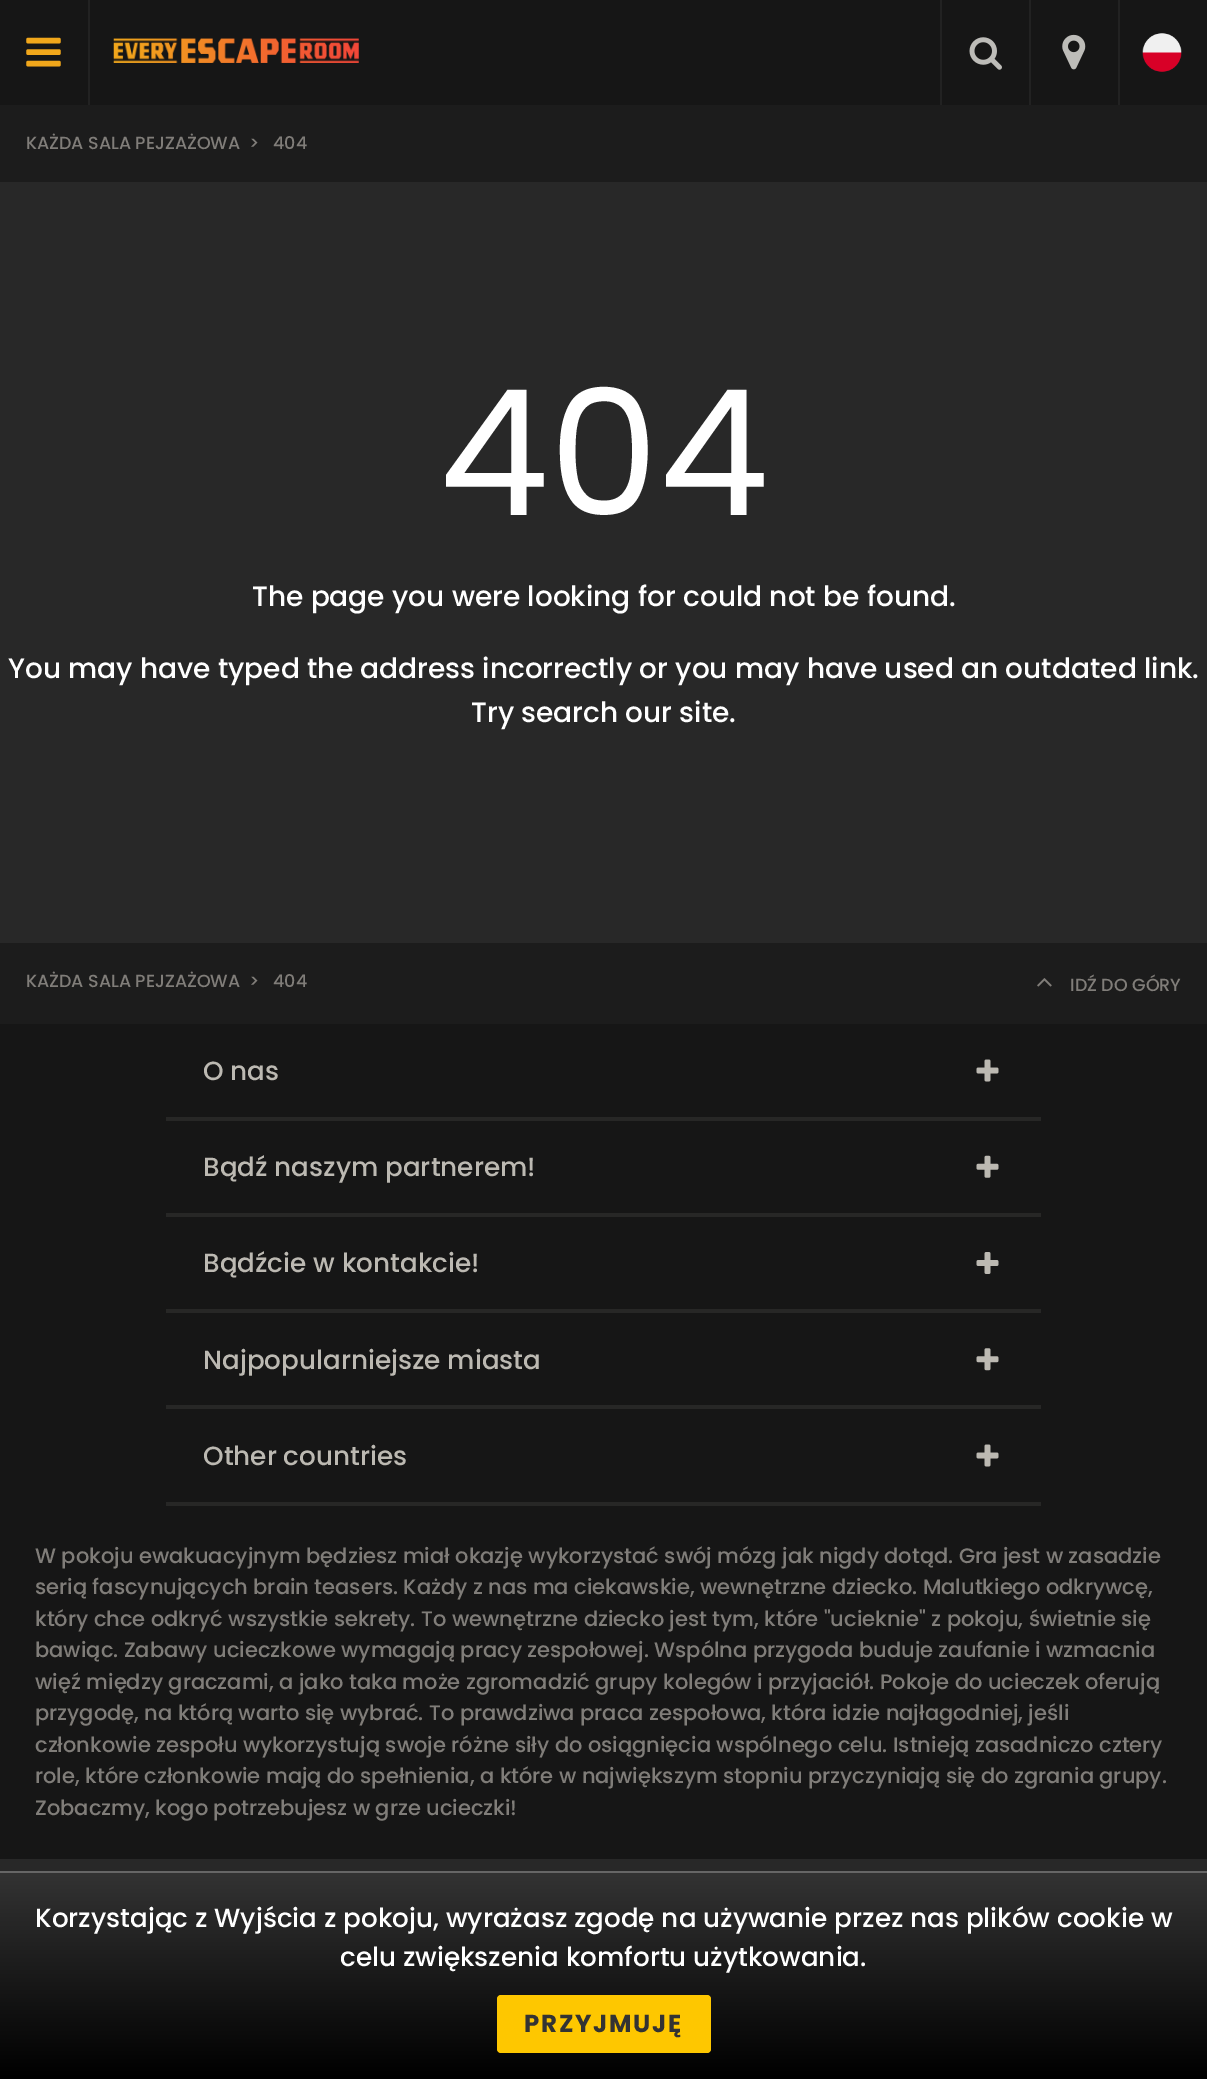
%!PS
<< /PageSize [1207 2079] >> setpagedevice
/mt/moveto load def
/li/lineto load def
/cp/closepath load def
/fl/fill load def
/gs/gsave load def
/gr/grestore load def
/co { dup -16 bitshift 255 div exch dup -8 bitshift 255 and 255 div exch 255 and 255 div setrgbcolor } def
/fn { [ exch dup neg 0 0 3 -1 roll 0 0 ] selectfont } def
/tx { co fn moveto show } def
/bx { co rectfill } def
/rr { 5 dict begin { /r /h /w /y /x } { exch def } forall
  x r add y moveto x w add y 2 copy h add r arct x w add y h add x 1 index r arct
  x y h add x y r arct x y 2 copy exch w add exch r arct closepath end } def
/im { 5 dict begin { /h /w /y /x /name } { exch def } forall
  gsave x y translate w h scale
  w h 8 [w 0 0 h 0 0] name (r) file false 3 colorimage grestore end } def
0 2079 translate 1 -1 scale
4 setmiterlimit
0 0 1207 2079 16#282828 bx
0 0 1207 105 16#161616 bx
88 0 2 105 16#222222 bx
(media/1.raw) 26 37 35 30 im
(media/2.raw) 113 38 246 25 im
940 0 2 105 16#222222 bx
(media/3.raw) 969 37 33 33 im
1029 0 2 105 16#222222 bx
(media/4.raw) 1062 34 24 36 im
1118 0 2 105 16#222222 bx
(media/5.raw) 1142 33 40 39 im
0 105 1207 77 16#1C1C1C bx
0 943 1207 81 16#1C1C1C bx
(media/6.raw) 1037 978 15 9 im
0 1024 1207 835 16#161616 bx
166 1117 875 4 16#272726 bx
(media/7.raw) 976 1059 23 23 im
166 1213 875 4 16#272726 bx
(media/8.raw) 976 1155 23 23 im
166 1309 875 4 16#272726 bx
(media/9.raw) 976 1252 23 22 im
166 1405 875 4 16#272726 bx
(media/10.raw) 976 1348 23 23 im
166 1502 875 4 16#272726 bx
(media/7.raw) 976 1444 23 23 im
gs 0 1873 mt 1207 1873 li 1207 2079 li 0 2079 li cp clip newpath
<< /ShadingType 2 /ColorSpace /DeviceRGB /Coords [604 1873 604 2079] /Extend [true true] /Function << /FunctionType 2 /Domain [0 1] /C0 [.2 .2 .2] /C1 [0 0 0] /N 1 >> >> shfill gr
0 1871 1207 2 16#666666 bx
16#FEC700 co
497 1995 214 58 4 rr fl
(KAŻDA SALA PEJZAŻOWA) 26 149 /Poppins-Medium 17.5 16#807D79 tx
(>) 249 149 /Poppins-Medium 17.5 16#807D79 tx
(404) 273 149 /Poppins-Medium 17.5 16#807D79 tx
(404) 439 515 /Poppins-Regular 175 16#FFFFFF tx
(The page you were looking for could not be found.) 252 606 /Poppins-Medium 28 16#FFFFFF tx
(You may have typed the address incorrectly or you may have used an outdated link.) 8 678 /Poppins-Medium 28 16#FFFFFF tx
(Try search our site.) 471 722 /Poppins-Medium 28 16#FFFFFF tx
(KAŻDA SALA PEJZAŻOWA) 26 987 /Poppins-Medium 17.5 16#807D79 tx
(>) 249 987 /Poppins-Medium 17.5 16#807D79 tx
(404) 273 987 /Poppins-Medium 17.5 16#807D79 tx
(IDŹ DO GÓRY) 1070 991 /Poppins-Medium 17.5 16#807D79 tx
(O nas) 203 1080 /Poppins-Medium 26.25 16#BCB9B2 tx
(Bądź naszym partnerem!) 203 1176 /Poppins-Medium 26.25 16#BCB9B2 tx
(Bądźcie w kontakcie!) 203 1272 /Poppins-Medium 26.25 16#BCB9B2 tx
(Najpopularniejsze miasta) 203 1369 /Poppins-Medium 26.25 16#BCB9B2 tx
(Other countries) 203 1465 /Poppins-Medium 26.25 16#BCB9B2 tx
(W pokoju ewakuacyjnym będziesz miał okazję wykorzystać swój mózg jak nigdy dotąd. Gra jest w zasadzie) 35 1563 /Poppins-Medium 21 16#807D79 tx
(serią fascynujących brain teasers. Każdy z nas ma ciekawskie, wewnętrzne dziecko. Malutkiego odkrywcę,) 35 1594 /Poppins-Medium 21 16#807D79 tx
(który chce odkryć wszystkie sekrety. To wewnętrzne dziecko jest tym, które "ucieknie" z pokoju, świetnie się) 35 1626 /Poppins-Medium 21 16#807D79 tx
(bawiąc. Zabawy ucieczkowe wymagają pracy zespołowej. Wspólna przygoda buduje zaufanie i wzmacnia) 35 1657 /Poppins-Medium 21 16#807D79 tx
(więź między graczami, a jako taka może zgromadzić grupy kolegów i przyjaciół. Pokoje do ucieczek oferują) 35 1689 /Poppins-Medium 21 16#807D79 tx
(przygodę, na którą warto się wybrać. To prawdziwa praca zespołowa, która idzie najłagodniej, jeśli) 35 1720 /Poppins-Medium 21 16#807D79 tx
(członkowie zespołu wykorzystują swoje różne siły do osiągnięcia wspólnego celu. Istnieją zasadniczo cztery) 35 1752 /Poppins-Medium 21 16#807D79 tx
(role, które członkowie mają do spełnienia, a które w największym stopniu przyczyniają się do zgrania grupy.) 35 1783 /Poppins-Medium 21 16#807D79 tx
(Zobaczmy, kogo potrzebujesz w grze ucieczki!) 35 1815 /Poppins-Medium 21 16#807D79 tx
(Korzystając z Wyjścia z pokoju, wyrażasz zgodę na używanie przez nas plików cookie w) 35 1927 /Poppins-Medium 26.25 16#FFFFFF tx
(celu zwiększenia komfortu użytkowania.) 340 1966 /Poppins-Medium 26.25 16#FFFFFF tx
/Poppins-Bold 24.5 fn
16#333333 co
524 2032 mt 1.75 0 (PRZYJMUJĘ) ashow
showpage
